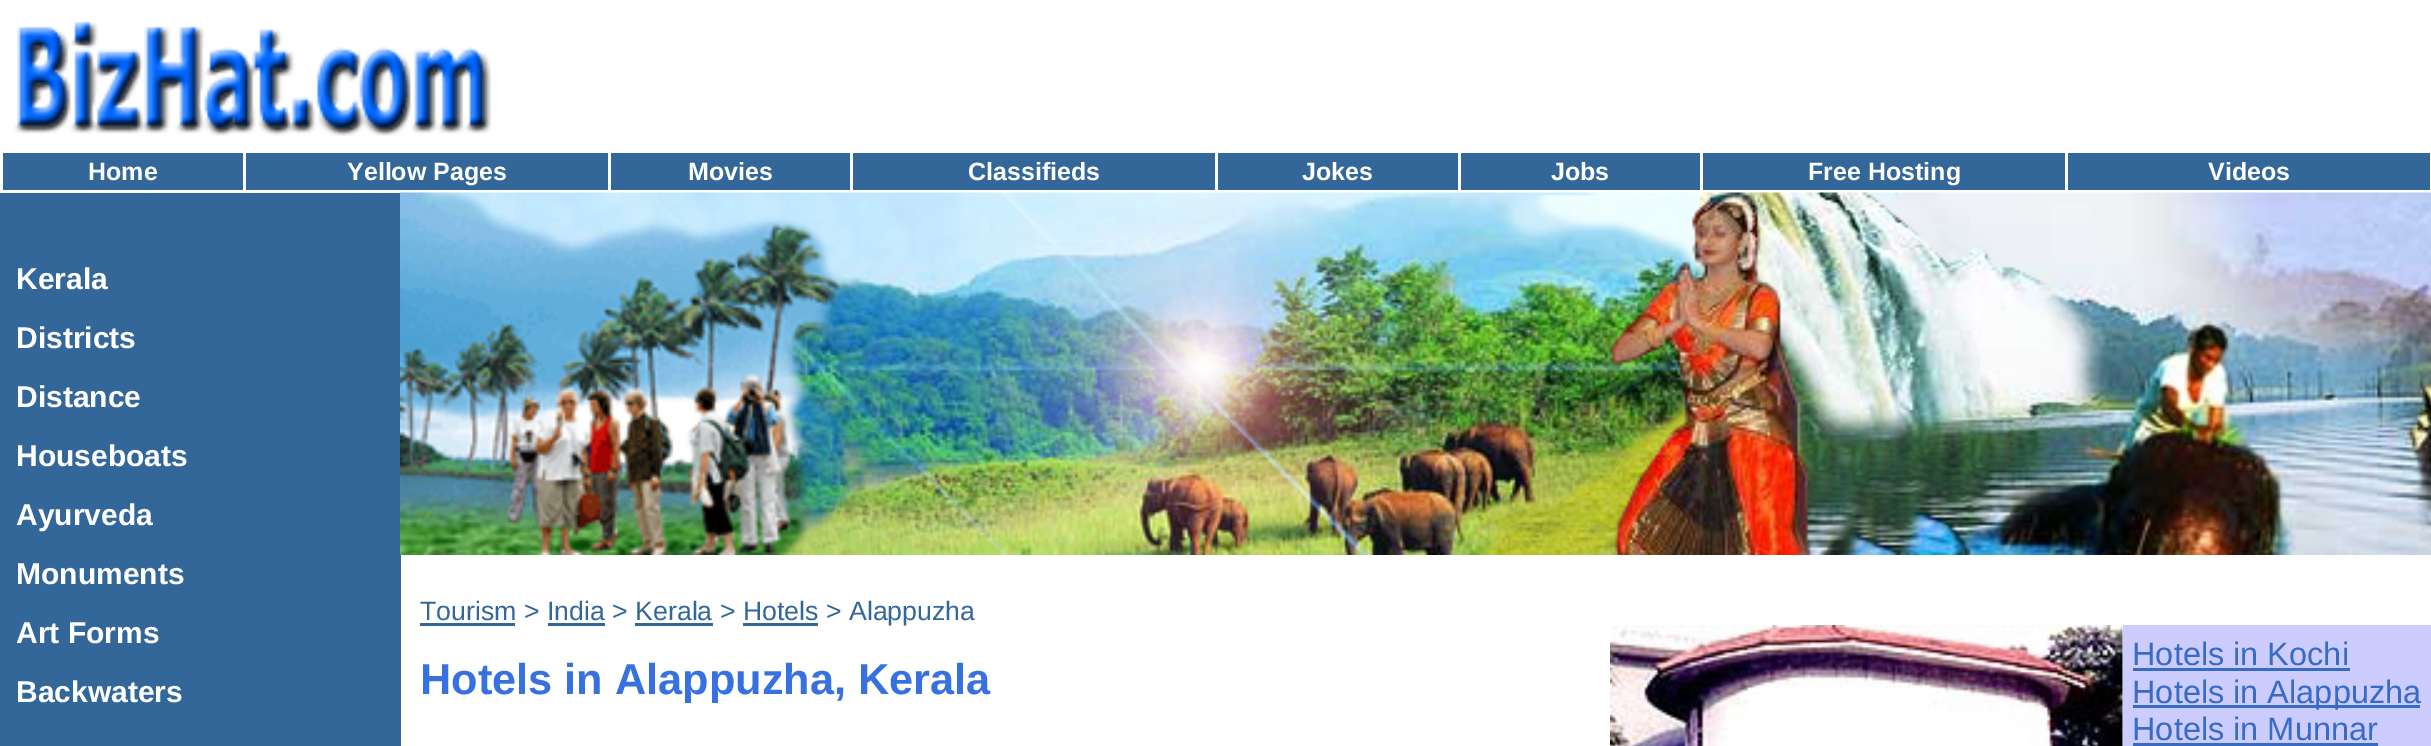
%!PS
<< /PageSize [2431 746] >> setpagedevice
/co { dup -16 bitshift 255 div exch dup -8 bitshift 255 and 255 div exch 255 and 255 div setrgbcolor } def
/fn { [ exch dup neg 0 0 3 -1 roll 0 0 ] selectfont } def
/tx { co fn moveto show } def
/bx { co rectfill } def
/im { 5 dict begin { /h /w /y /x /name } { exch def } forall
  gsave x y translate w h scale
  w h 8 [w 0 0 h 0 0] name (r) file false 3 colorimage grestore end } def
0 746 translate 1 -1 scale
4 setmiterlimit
0 0 2431 746 16#FFFFFF bx
(media/1.raw) 14 21 478 115 im
3 153 2427 37 16#336699 bx
243 150 3 43 16#FFFFFF bx
608 150 3 43 16#FFFFFF bx
850 150 3 43 16#FFFFFF bx
1215 150 3 43 16#FFFFFF bx
1458 150 3 43 16#FFFFFF bx
1700 150 3 43 16#FFFFFF bx
2065 150 3 43 16#FFFFFF bx
0 193 401 553 16#336699 bx
(media/2.raw) 400 192 2031 363 im
420 623 95 3 16#336699 bx
548 623 57 3 16#336699 bx
635 623 78 3 16#336699 bx
743 623 75 3 16#336699 bx
(media/3.raw) 1610 625 513 121 im
2123 625 308 121 16#CCCCFF bx
2133 668 217 3 16#366BC6 bx
2133 705 287 3 16#366BC6 bx
2133 743 245 3 16#366BC6 bx
(Home) 88 180 /LiberationSans-Bold 25 16#FFFFFF tx
(Yellow Pages) 347 180 /LiberationSans-Bold 25 16#FFFFFF tx
(Movies) 688 180 /LiberationSans-Bold 25 16#FFFFFF tx
(Classifieds) 968 180 /LiberationSans-Bold 25 16#FFFFFF tx
(Jokes) 1302 180 /LiberationSans-Bold 25 16#FFFFFF tx
(Jobs) 1551 180 /LiberationSans-Bold 25 16#FFFFFF tx
(Free Hosting) 1808 180 /LiberationSans-Bold 25 16#FFFFFF tx
(Videos) 2208 180 /LiberationSans-Bold 25 16#FFFFFF tx
(Kerala) 16 289 /LiberationSans-Bold 30 16#FFFFFF tx
(Districts) 16 348 /LiberationSans-Bold 30 16#FFFFFF tx
(Distance) 16 407 /LiberationSans-Bold 30 16#FFFFFF tx
(Houseboats) 16 466 /LiberationSans-Bold 30 16#FFFFFF tx
(Ayurveda) 16 525 /LiberationSans-Bold 30 16#FFFFFF tx
(Monuments) 16 584 /LiberationSans-Bold 30 16#FFFFFF tx
(Art Forms) 16 643 /LiberationSans-Bold 30 16#FFFFFF tx
(Backwaters) 16 702 /LiberationSans-Bold 30 16#FFFFFF tx
(Tourism > India > Kerala > Hotels > Alappuzha) 420 620 /LiberationSans-Regular 26.7 16#336699 tx
(Hotels in Alappuzha, Kerala) 420 694 /LiberationSans-Bold 43.3 16#3771DF tx
(Hotels in Kochi) 2132 665 /LiberationSans-Regular 32.5 16#366BC6 tx
(Hotels in Alappuzha) 2132 703 /LiberationSans-Regular 32.5 16#366BC6 tx
(Hotels in Munnar) 2132 740 /LiberationSans-Regular 32.5 16#366BC6 tx
showpage
